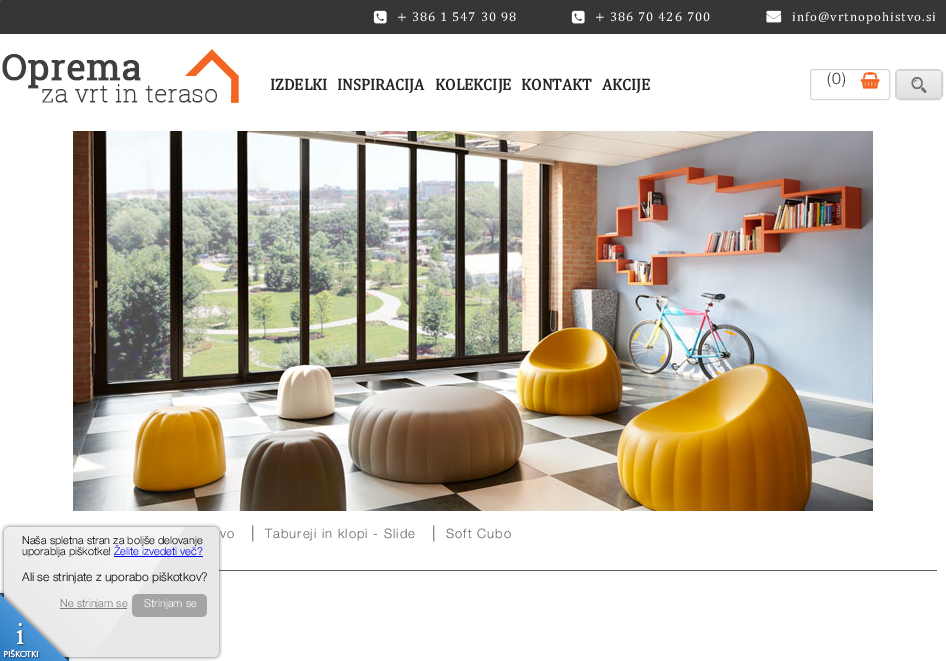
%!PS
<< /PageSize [946 661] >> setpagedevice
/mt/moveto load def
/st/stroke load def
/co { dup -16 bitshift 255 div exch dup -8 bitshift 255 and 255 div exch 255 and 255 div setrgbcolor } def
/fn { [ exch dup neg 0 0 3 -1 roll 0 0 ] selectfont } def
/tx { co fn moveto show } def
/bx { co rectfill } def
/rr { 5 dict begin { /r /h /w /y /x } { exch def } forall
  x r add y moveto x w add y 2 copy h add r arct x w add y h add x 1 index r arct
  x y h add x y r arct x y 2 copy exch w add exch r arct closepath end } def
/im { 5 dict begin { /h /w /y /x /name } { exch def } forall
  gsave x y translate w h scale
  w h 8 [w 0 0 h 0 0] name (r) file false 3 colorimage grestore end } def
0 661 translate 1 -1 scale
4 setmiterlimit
0 0 946 661 16#FFFFFF bx
0 0 946 34 16#363636 bx
0 0 1 1 16#5D5D5D bx
(media/1.raw) 373 10 14 14 im
(media/1.raw) 571 10 14 14 im
(media/2.raw) 766 10 16 13 im
(media/3.raw) 2 49 237 54 im
16#D7D7D7 co
810.5 69.5 79 30 2.5 rr st
(media/4.raw) 860 72 20 17 im
16#D3D3D3 co
895.5 69.5 47 30 4.5 rr st
(media/5.raw) 896 70 46 29 im
(media/9.raw) 73 131 800 380 im
219 570 718 1 16#606060 bx
(media/10.raw) 95 526 24 1 im
/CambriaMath-Regular 13 fn
16#FFFFFF co
397 21 mt 1 0 (+ 386 1 547 30 98) ashow
595 21 mt 1 0 (+ 386 70 426 700) ashow
792 21 mt 1 0 (info@vrtnopohistvo.si) ashow
(IZDELKI) 270 90 /CambriaMath-Bold 16 16#262626 tx
(INSPIRACIJA) 337 90 /CambriaMath-Bold 16 16#262626 tx
(KOLEKCIJE) 435 90 /CambriaMath-Bold 16 16#262626 tx
(KONTAKT) 521 90 /CambriaMath-Bold 16 16#262626 tx
(AKCIJE) 602 90 /CambriaMath-Bold 16 16#262626 tx
/HelveticaNeue-Light 16 fn
16#363636 co
827 84 mt 1 0 (\(0\)) ashow
16#606060 co
251 538 mt 1 0 (|) ashow
432 538 mt 1 0 (|) ashow
/HelveticaNeue-Light 13 fn
220 538 mt 1 0 (vo) ashow
(media/6.raw) 0 523 223 138 im
60 608 67 1 16#777777 bx
(Ne strinjam se) 60 607 /HelveticaNeue-Light 11 16#777777 tx
(media/8.raw) 0 590 72 71 im
(Ali se strinjate z uporabo piškotkov?) 22 581 /HelveticaNeue-Light 12 16#000000 tx
(Želite izvedeti več?) 114 555 /HelveticaNeue-Light 11 16#0000EE tx
114 556 89 1 16#0000EE bx
(uporablja piškotke!) 22 555 /HelveticaNeue-Light 11 16#000000 tx
(Naša spletna stran za boljše delovanje) 22 544 /HelveticaNeue-Light 11 16#000000 tx
(media/7.raw) 132 594 75 23 im
(Strinjam se) 144 607 /HelveticaNeue-Light 11 16#FFFFFF tx
/HelveticaNeue-Light 13 fn
16#606060 co
265 538 mt 1 0 (Tabureji in klopi - Slide) ashow
446 538 mt 1 0 (Soft Cubo) ashow
showpage
